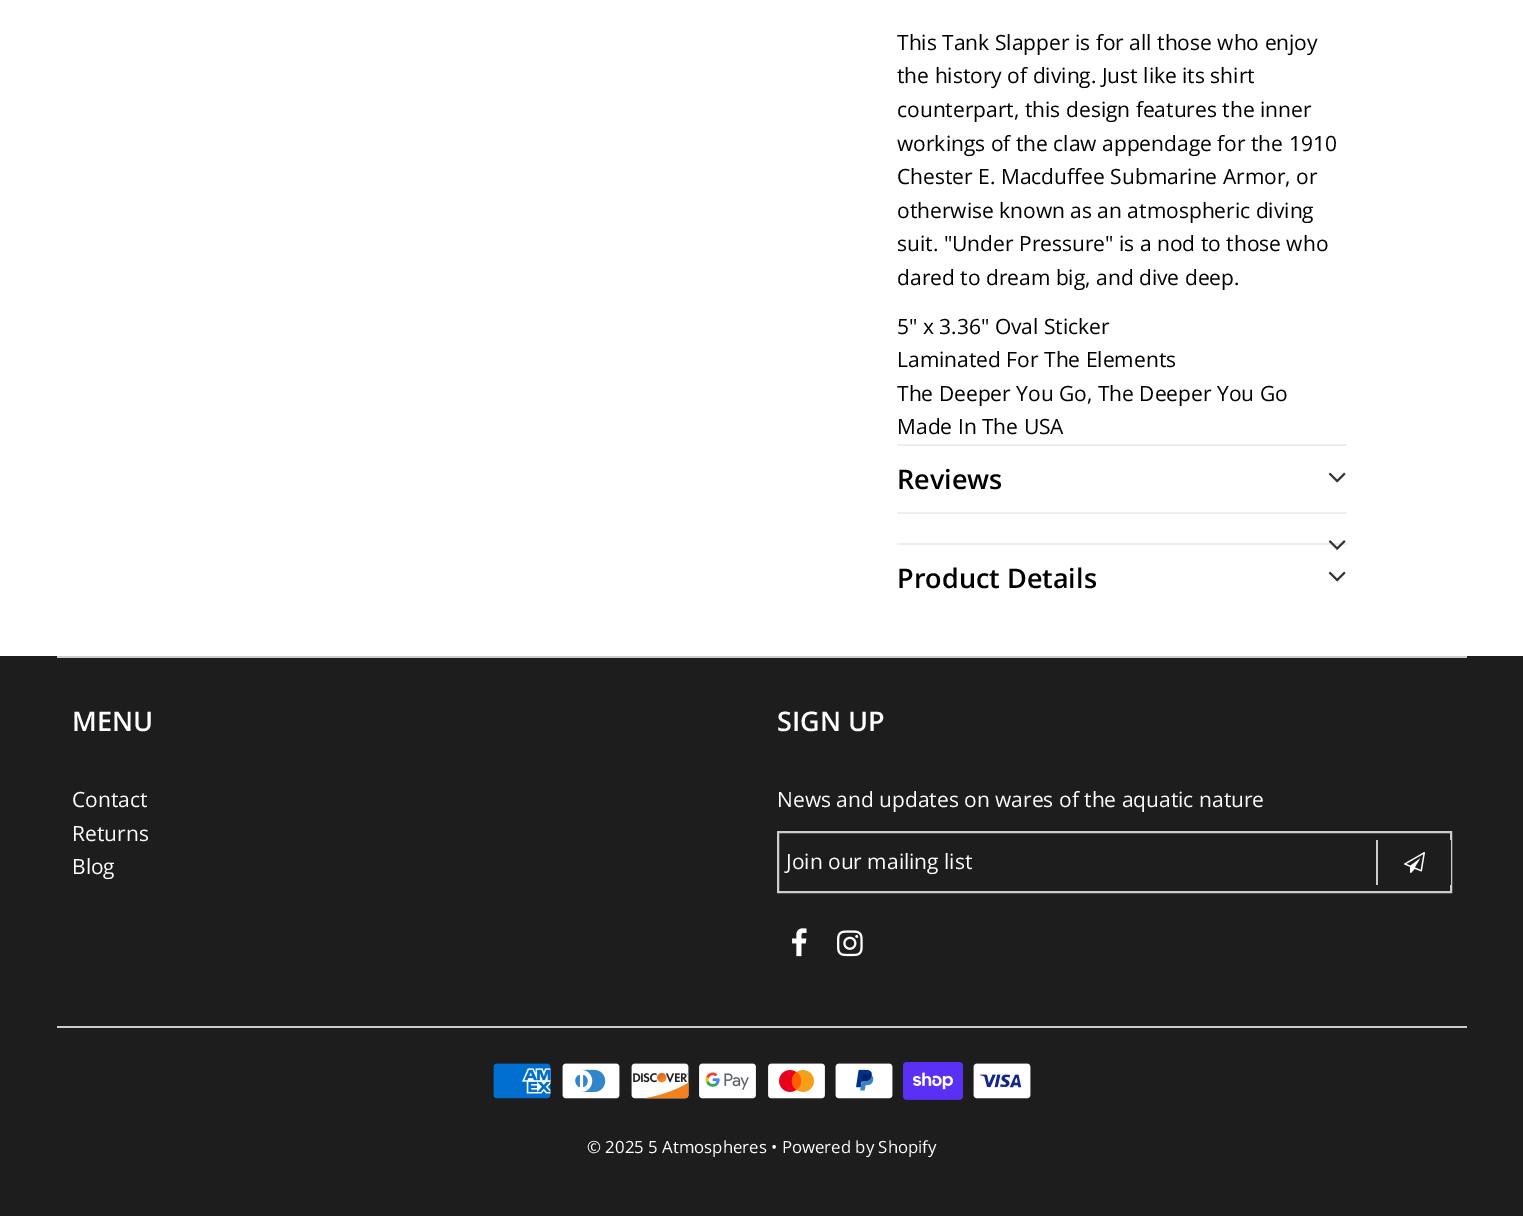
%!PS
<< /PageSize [1523 1216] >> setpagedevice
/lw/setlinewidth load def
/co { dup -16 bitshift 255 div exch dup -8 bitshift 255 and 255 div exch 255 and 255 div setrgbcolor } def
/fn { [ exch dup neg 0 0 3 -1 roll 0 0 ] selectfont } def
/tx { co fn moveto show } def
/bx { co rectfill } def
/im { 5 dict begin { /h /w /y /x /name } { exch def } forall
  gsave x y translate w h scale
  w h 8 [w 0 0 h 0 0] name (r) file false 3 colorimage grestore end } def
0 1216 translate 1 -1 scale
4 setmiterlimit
0 0 1523 1216 16#FFFFFF bx
897 444 450 2 16#EEEEEE bx
(media/1.raw) 1328 472 18 11 im
897 512 450 2 16#EEEEEE bx
897 543 450 2 16#EEEEEE bx
(media/2.raw) 1328 540 18 10 im
(media/1.raw) 1328 571 18 11 im
0 656 1523 560 16#1D1D1D bx
57 656 1410 2 16#CCCCCC bx
57 1026 1410 2 16#CCCCCC bx
2 lw
778 832 673 60 rectstroke
1450 840 1 45 16#1D1D1D bx
1376 840 2 45 16#CCCCCC bx
(media/3.raw) 1404 852 21 21 im
(media/4.raw) 792 928 15 29 im
(media/5.raw) 837 930 26 27 im
(media/6.raw) 493 1063 58 36 im
(media/7.raw) 562 1063 58 36 im
(media/8.raw) 631 1063 58 36 im
(media/9.raw) 699 1063 57 36 im
(media/10.raw) 768 1063 57 36 im
(media/11.raw) 835 1063 58 36 im
(media/12.raw) 903 1062 60 38 im
(media/13.raw) 973 1063 58 36 im
(This Tank Slapper is for all those who enjoy) 897 50 /OpenSans-Regular 21 16#000000 tx
(the history of diving. Just like its shirt) 897 83 /OpenSans-Regular 21 16#000000 tx
(counterpart, this design features the inner) 897 117 /OpenSans-Regular 21 16#000000 tx
(workings of the claw appendage for the 1910) 897 151 /OpenSans-Regular 21 16#000000 tx
(Chester E. Macduffee Submarine Armor, or) 897 184 /OpenSans-Regular 21 16#000000 tx
(otherwise known as an atmospheric diving) 897 218 /OpenSans-Regular 21 16#000000 tx
(suit. "Under Pressure" is a nod to those who) 897 251 /OpenSans-Regular 21 16#000000 tx
(dared to dream big, and dive deep.) 897 285 /OpenSans-Regular 21 16#000000 tx
(5" x 3.36" Oval Sticker) 897 334 /OpenSans-Regular 21 16#000000 tx
(Laminated For The Elements) 897 367 /OpenSans-Regular 21 16#000000 tx
(The Deeper You Go, The Deeper You Go) 897 401 /OpenSans-Regular 21 16#000000 tx
(Made In The USA) 897 434 /OpenSans-Regular 21 16#000000 tx
(Reviews) 897 489 /OpenSans-SemiBold 27 16#000000 tx
(Product Details) 897 588 /OpenSans-SemiBold 27 16#000000 tx
(MENU) 72 731 /OpenSans-SemiBold 27 16#FFFFFF tx
(Contact) 72 807 /OpenSans-Regular 21 16#FFFFFF tx
(Returns) 72 841 /OpenSans-Regular 21 16#FFFFFF tx
(Blog) 72 874 /OpenSans-Regular 21 16#FFFFFF tx
(SIGN UP) 777 731 /OpenSans-SemiBold 27 16#FFFFFF tx
(News and updates on wares of the aquatic nature) 777 807 /OpenSans-Regular 21 16#FFFFFF tx
(Join our mailing list) 786 869 /OpenSans-Regular 21 16#FFFFFF tx
(© 2025 5 Atmospheres • Powered by Shopify) 587 1153 /OpenSans-Regular 16.8 16#FFFFFF tx
showpage
